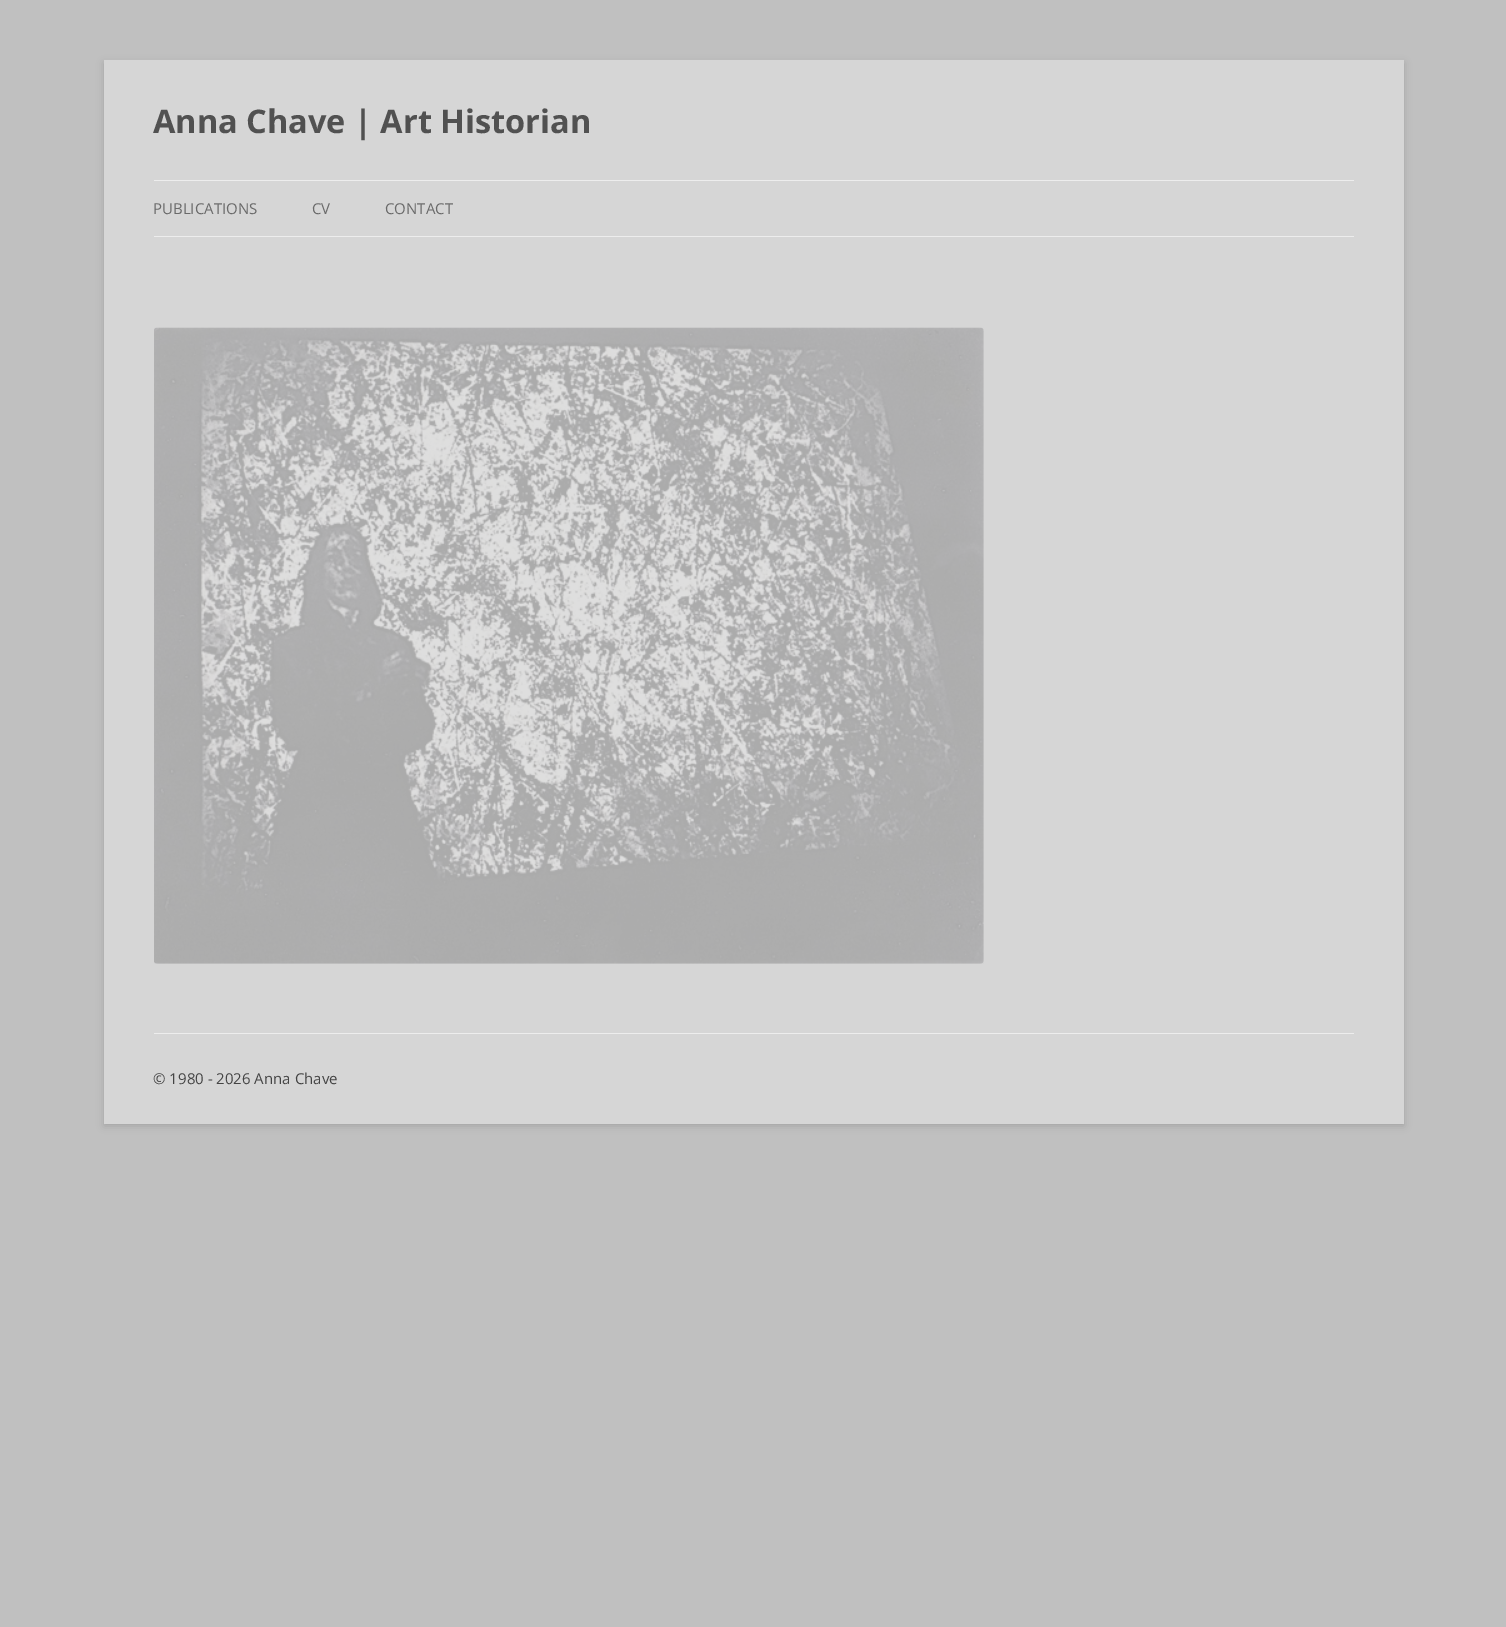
%!PS
<< /PageSize [1506 1627] /PageUsesTransparency true >> setpagedevice
/co { dup -16 bitshift 255 div exch dup -8 bitshift 255 and 255 div exch 255 and 255 div setrgbcolor } def
/fn { [ exch dup neg 0 0 3 -1 roll 0 0 ] selectfont } def
/tx { co fn moveto show } def
/bx { co rectfill } def
/al { dup .setfillconstantalpha .setstrokeconstantalpha } def
/rr { 5 dict begin { /r /h /w /y /x } { exch def } forall
  x r add y moveto x w add y 2 copy h add r arct x w add y h add x 1 index r arct
  x y h add x y r arct x y 2 copy exch w add exch r arct closepath end } def
/sh { 12 dict begin { /a /b /q /h /w /y /x } { exch def } forall gsave /was 0 def
  9 -2 -9 { dup b mul 4 div /e exch def 1 sub .425 mul 2.718 exch exp 1 add a .99 .min exch div /now exch def
    1 1 now sub 1 was sub div sub al /was now def
    w h .min e 2 mul add 0 gt { x e sub y e sub w e 2 mul add h e 2 mul add
      q e add b .6 mul add w h .min 2 div e add .min 0 .max rr fill } if } for grestore end } def
/im { 5 dict begin { /h /w /y /x /name } { exch def } forall
  gsave x y translate w h scale
  w h 8 [w 0 0 h 0 0] name (r) file false 3 colorimage grestore end } def
0 .pushpdf14devicefilter
0 1627 translate 1 -1 scale
4 setmiterlimit
0 0 1506 1627 16#C0C0C0 bx
16#646464 co
104 63 1300 1063 0 4 .3 sh
104 60 1300 1064 16#D6D6D6 bx
154 180 1200 1 16#EDEDED bx
154 236 1200 1 16#EDEDED bx
(media/1.raw) 154 327 830 637 im
154 1033 1200 1 16#EDEDED bx
(Anna Chave | Art Historian) 153 133 /OpenSans-Bold 32.5 16#515151 tx
(PUBLICATIONS) 153 214 /OpenSans-Regular 15 16#6A6A6A tx
(CV) 312 214 /OpenSans-Regular 15 16#6A6A6A tx
(CONTACT) 385 214 /OpenSans-Regular 15 16#6A6A6A tx
(© 1980 - 2026 Anna Chave) 153 1084 /OpenSans-Regular 15 16#444444 tx
.poppdf14devicefilter showpage
